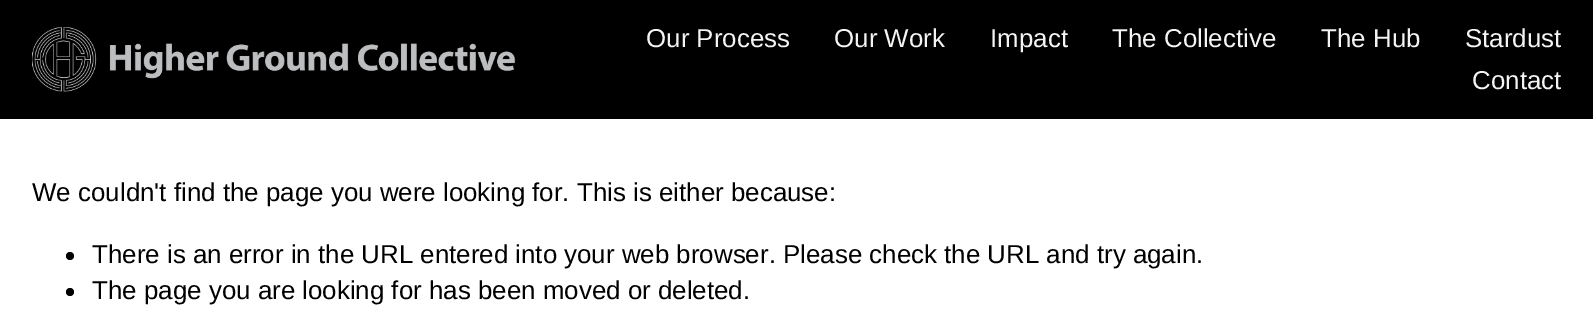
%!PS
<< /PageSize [1593 317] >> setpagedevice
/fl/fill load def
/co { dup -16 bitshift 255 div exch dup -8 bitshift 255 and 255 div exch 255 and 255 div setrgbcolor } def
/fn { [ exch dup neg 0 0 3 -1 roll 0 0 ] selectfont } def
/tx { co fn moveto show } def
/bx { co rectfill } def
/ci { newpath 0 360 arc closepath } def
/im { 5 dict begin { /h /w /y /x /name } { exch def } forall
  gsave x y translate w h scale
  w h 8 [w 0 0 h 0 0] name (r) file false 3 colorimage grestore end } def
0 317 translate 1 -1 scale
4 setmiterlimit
0 0 1593 317 16#FFFFFF bx
0 0 1593 119 16#000000 bx
(media/1.raw) 32 27 484 65 im
70 256 4 ci fl
70 292 4 ci fl
(Our Process) 646 47 /LiberationSans-Regular 25.9 16#F4F4F3 tx
(Our Work) 834 47 /LiberationSans-Regular 25.9 16#F4F4F3 tx
(Impact) 990 47 /LiberationSans-Regular 25.9 16#F4F4F3 tx
(The Collective) 1112 47 /LiberationSans-Regular 25.9 16#F4F4F3 tx
(The Hub) 1321 47 /LiberationSans-Regular 25.9 16#F4F4F3 tx
(Stardust) 1465 47 /LiberationSans-Regular 25.9 16#F4F4F3 tx
(Contact) 1472 89 /LiberationSans-Regular 25.9 16#F4F4F3 tx
(We couldn't find the page you were looking for. This is either because:) 32 201 /LiberationSans-Regular 25.9 16#000000 tx
(There is an error in the URL entered into your web browser. Please check the URL and try again.) 92 263 /LiberationSans-Regular 25.9 16#000000 tx
(The page you are looking for has been moved or deleted.) 92 299 /LiberationSans-Regular 25.9 16#000000 tx
showpage
